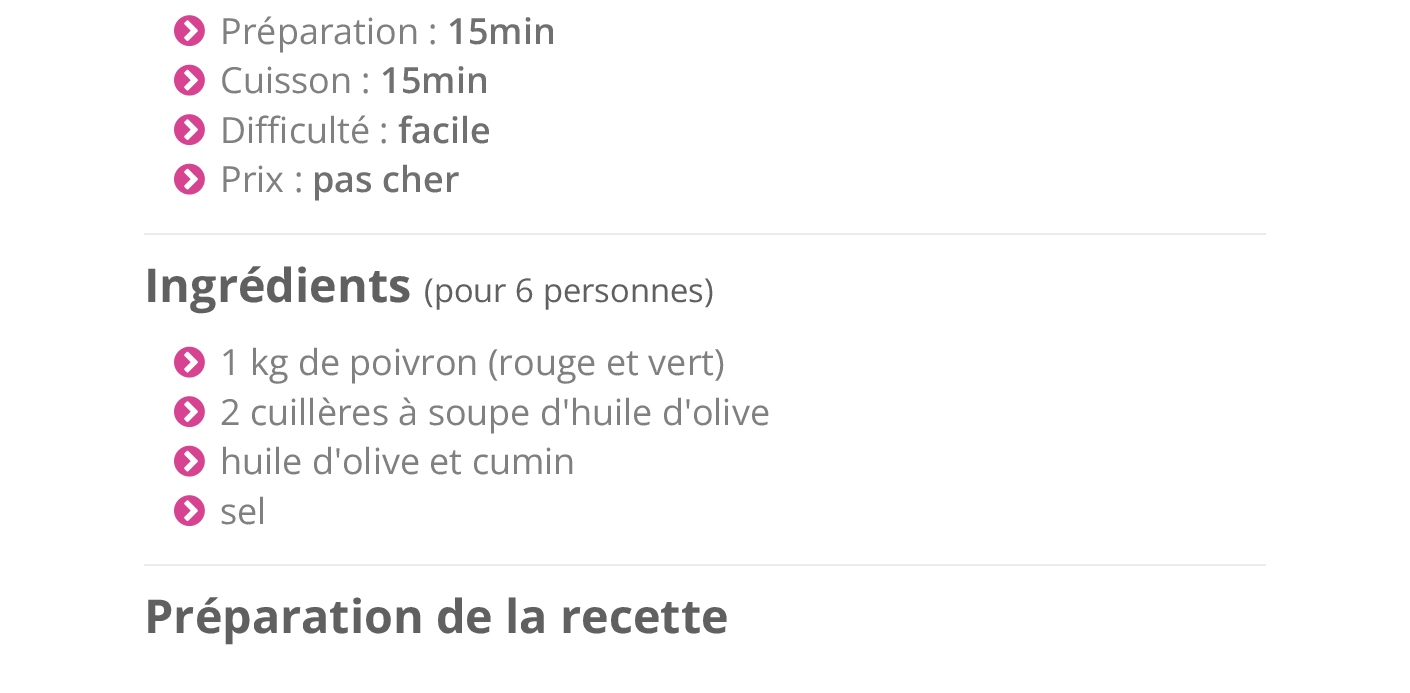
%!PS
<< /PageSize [1410 693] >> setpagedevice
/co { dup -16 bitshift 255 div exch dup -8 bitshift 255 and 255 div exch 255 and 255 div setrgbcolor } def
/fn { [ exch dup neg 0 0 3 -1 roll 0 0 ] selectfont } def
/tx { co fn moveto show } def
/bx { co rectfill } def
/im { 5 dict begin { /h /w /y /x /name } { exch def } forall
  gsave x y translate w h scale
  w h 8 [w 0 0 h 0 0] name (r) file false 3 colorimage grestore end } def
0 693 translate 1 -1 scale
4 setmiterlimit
0 0 1410 693 16#FFFFFF bx
(media/1.raw) 174 15 31 32 im
(media/2.raw) 174 64 31 32 im
(media/1.raw) 174 114 31 32 im
(media/2.raw) 174 163 31 32 im
144 233 1122 2 16#EBEBEB bx
(media/2.raw) 174 346 31 32 im
(media/1.raw) 174 396 31 32 im
(media/2.raw) 174 445 31 32 im
(media/1.raw) 174 495 31 32 im
144 564 1122 2 16#EBEBEB bx
(Préparation :) 220 44 /OpenSans-Regular 36 16#808080 tx
(15min) 447 44 /OpenSans-SemiBold 36 16#707070 tx
(Cuisson :) 220 93 /OpenSans-Regular 36 16#808080 tx
(15min) 380 93 /OpenSans-SemiBold 36 16#707070 tx
(Difficulté :) 220 143 /OpenSans-Regular 36 16#808080 tx
(facile) 398 143 /OpenSans-SemiBold 36 16#707070 tx
(Prix :) 220 192 /OpenSans-Regular 36 16#808080 tx
(pas cher) 312 192 /OpenSans-SemiBold 36 16#707070 tx
(Ingrédients) 144 302 /OpenSans-Bold 46.75 16#606060 tx
(\(pour 6 personnes\)) 424 302 /OpenSans-Regular 32.75 16#606060 tx
(1 kg de poivron \(rouge et vert\)) 220 375 /OpenSans-Regular 36 16#808080 tx
(2 cuillères à soupe d'huile d'olive) 220 425 /OpenSans-Regular 36 16#808080 tx
(huile d'olive et cumin) 220 474 /OpenSans-Regular 36 16#808080 tx
(sel) 220 524 /OpenSans-Regular 36 16#808080 tx
(Préparation de la recette) 144 633 /OpenSans-Bold 46.75 16#606060 tx
showpage
